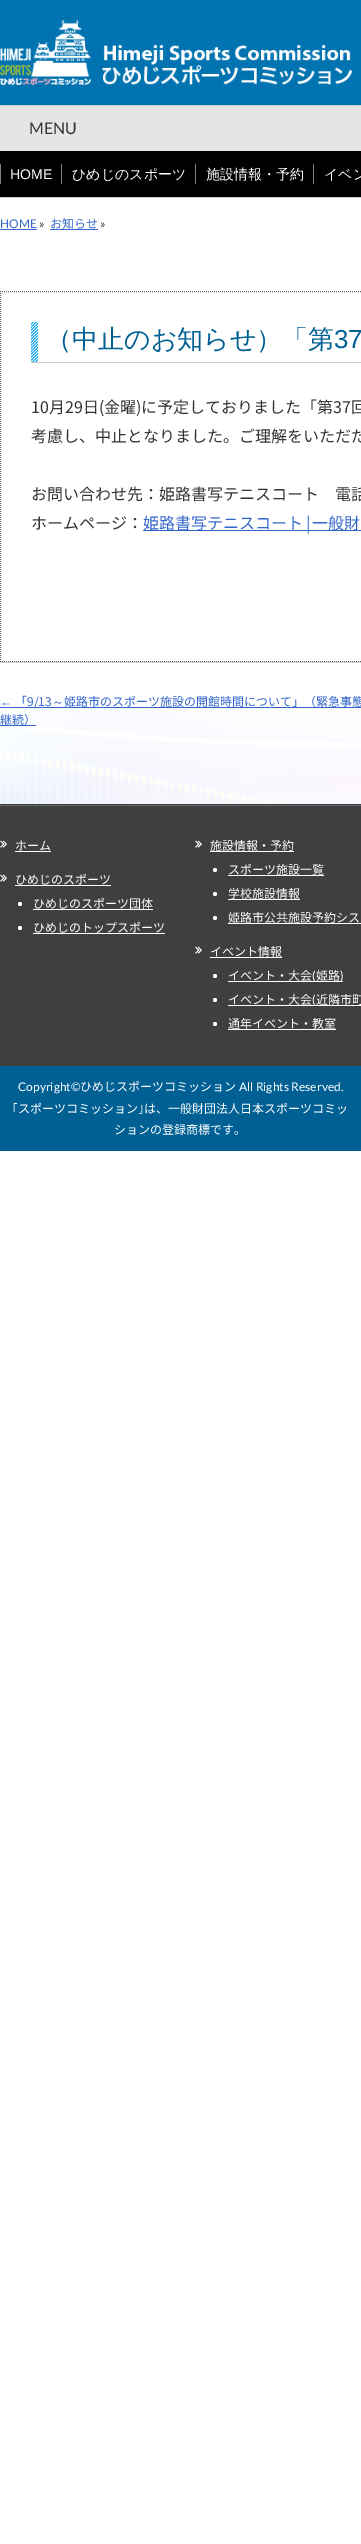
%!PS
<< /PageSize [361 2544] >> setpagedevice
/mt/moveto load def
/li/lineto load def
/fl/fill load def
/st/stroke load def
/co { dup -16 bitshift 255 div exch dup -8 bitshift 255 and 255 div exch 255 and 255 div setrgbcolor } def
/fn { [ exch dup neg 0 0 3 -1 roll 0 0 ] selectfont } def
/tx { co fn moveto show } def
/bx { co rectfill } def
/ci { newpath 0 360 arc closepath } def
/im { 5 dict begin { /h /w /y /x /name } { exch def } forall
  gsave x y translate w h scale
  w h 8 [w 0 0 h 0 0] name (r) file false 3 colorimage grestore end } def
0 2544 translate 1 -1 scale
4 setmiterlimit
0 0 361 2544 16#FFFFFF bx
(media/1.raw) 0 698 361 106 im
0 0 361 105 16#0173B0 bx
(media/2.raw) 0 20 353 65 im
0 151 361 46 16#000000 bx
0 105 361 1 16#CCCCCC bx
0 197 361 1 16#CCCCCC bx
0 106 361 45 16#E5E5E5 bx
0 164 1 20 16#828282 bx
61 164 1 20 16#828282 bx
195 164 1 20 16#828282 bx
313 164 1 20 16#828282 bx
0 229 37 1 16#3366CC bx
50 229 48 1 16#3366CC bx
16#666666 co
[1 1] 0 setdash
0 291.5 mt 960 291.5 li st
0 661.5 mt 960 661.5 li st
.5 291 mt .5 662 li st
(media/3.raw) 31 322 7 40 im
31 362 330 1 16#C8C8C8 bx
143 530 218 1 16#3366CC bx
0 662 361 1 16#CCCCCC bx
0 707 361 1 16#3366CC bx
0 725 36 1 16#3366CC bx
0 804 361 262 16#3F3F3F bx
0 805 361 1 16#666666 bx
(media/4.raw) 0 840 7 8 im
15 851 36 1 16#FFFFFF bx
(media/4.raw) 0 874 7 8 im
15 885 96 1 16#FFFFFF bx
20 904 2 ci fl
33 909 120 1 16#FFFFFF bx
20 928 2 ci fl
33 933 132 1 16#FFFFFF bx
(media/4.raw) 195 840 7 8 im
210 851 84 1 16#FFFFFF bx
215 870 2 ci fl
228 875 96 1 16#FFFFFF bx
215 894 2 ci fl
228 899 72 1 16#FFFFFF bx
215 918 2 ci fl
228 923 133 1 16#FFFFFF bx
(media/4.raw) 195 946 7 8 im
210 957 72 1 16#FFFFFF bx
215 976 2 ci fl
228 981 115 1 16#FFFFFF bx
215 1000 2 ci fl
228 1005 133 1 16#FFFFFF bx
215 1024 2 ci fl
228 1029 108 1 16#FFFFFF bx
0 1066 361 85 16#006094 bx
(MENU) 29 134 /Lato-Regular 16 16#333333 tx
(HOME) 10 179 /LiberationSans-Regular 14 16#FFFFFF tx
(ひめじのスポーツ) 72 179 /WenQuanYiZenHei-Medium 14 16#FFFFFF tx
(施設情報・予約) 206 179 /WenQuanYiZenHei-Medium 14 16#FFFFFF tx
(イベン) 324 179 /WenQuanYiZenHei-Medium 14 16#FFFFFF tx
(HOME) 0 228 /Lato-Regular 12 16#3366CC tx
(») 39 228 /Lato-Regular 12 16#333333 tx
(お知らせ) 50 228 /NotoSansJP-Regular 12 16#3366CC tx
(») 100 228 /Lato-Regular 12 16#333333 tx
(（中止のお知らせ）「第) 46 348 /WenQuanYiZenHei-Medium 26 16#006094 tx
(37) 334 348 /LiberationSans-Regular 26 16#006094 tx
(10月29日\(金曜\)に予定しておりました「第37回) 31 413 /NotoSansJP-Regular 16 16#333333 tx
(考慮し、中止となりました。ご理解をいただだ) 31 442 /NotoSansJP-Regular 16 16#333333 tx
(お問い合わせ先：姫路書写テニスコート　電話) 31 500 /NotoSansJP-Regular 16 16#333333 tx
(ホームページ：) 31 529 /NotoSansJP-Regular 16 16#333333 tx
16#3366CC co
143 529 mt -1 0 32 (姫路書写テニスコート | 一般財) widthshow
(←) 0 706 /LiberationSans-Regular 12 16#3366CC tx
(「9/13) 15 706 /NotoSansJP-Regular 12 16#3366CC tx
(～) 52 706 /WenQuanYiZenHei-Medium 12 16#3366CC tx
(姫路市のスポーツ施設の開館時間について」（緊急事態) 64 706 /NotoSansJP-Regular 12 16#3366CC tx
(継続）) 0 724 /NotoSansJP-Regular 12 16#3366CC tx
(ホーム) 15 850 /NotoSansJP-Regular 12 16#FFFFFF tx
(ひめじのスポーツ) 15 884 /NotoSansJP-Regular 12 16#FFFFFF tx
(ひめじのスポーツ団体) 33 908 /NotoSansJP-Regular 12 16#FFFFFF tx
(ひめじのトップスポーツ) 33 932 /NotoSansJP-Regular 12 16#FFFFFF tx
(施設情報・予約) 210 850 /NotoSansJP-Regular 12 16#FFFFFF tx
(スポーツ施設一覧) 228 874 /NotoSansJP-Regular 12 16#FFFFFF tx
(学校施設情報) 228 898 /NotoSansJP-Regular 12 16#FFFFFF tx
(姫路市公共施設予約シス) 228 922 /NotoSansJP-Regular 12 16#FFFFFF tx
(イベント情報) 210 956 /NotoSansJP-Regular 12 16#FFFFFF tx
(イベント・大会) 228 980 /NotoSansJP-Regular 12 16#FFFFFF tx
(\() 312 980 /Lato-Regular 12 16#FFFFFF tx
(姫路) 316 980 /NotoSansJP-Regular 12 16#FFFFFF tx
(\)) 340 980 /Lato-Regular 12 16#FFFFFF tx
(イベント・大会) 228 1004 /NotoSansJP-Regular 12 16#FFFFFF tx
(\() 312 1004 /Lato-Regular 12 16#FFFFFF tx
(近隣市町) 316 1004 /NotoSansJP-Regular 12 16#FFFFFF tx
(通年イベント・教室) 228 1028 /NotoSansJP-Regular 12 16#FFFFFF tx
(Copyright©) 18 1091 /Lato-Regular 12 16#FFFFFF tx
(ひめじスポーツコミッション) 80 1091 /NotoSansJP-Regular 12 16#FFFFFF tx
(All Rights Reserved.) 239 1091 /Lato-Regular 12 16#FFFFFF tx
(｢) 12 1113 /IPAPGothic-Regular 12 16#FFFFFF tx
(スポーツコミッション) 18 1113 /NotoSansJP-Regular 12 16#FFFFFF tx
(｣) 138 1113 /IPAPGothic-Regular 12 16#FFFFFF tx
(は、一般財団法人日本スポーツコミッ) 144 1113 /NotoSansJP-Regular 12 16#FFFFFF tx
(ションの登録商標です。) 114 1134 /NotoSansJP-Regular 12 16#FFFFFF tx
showpage
